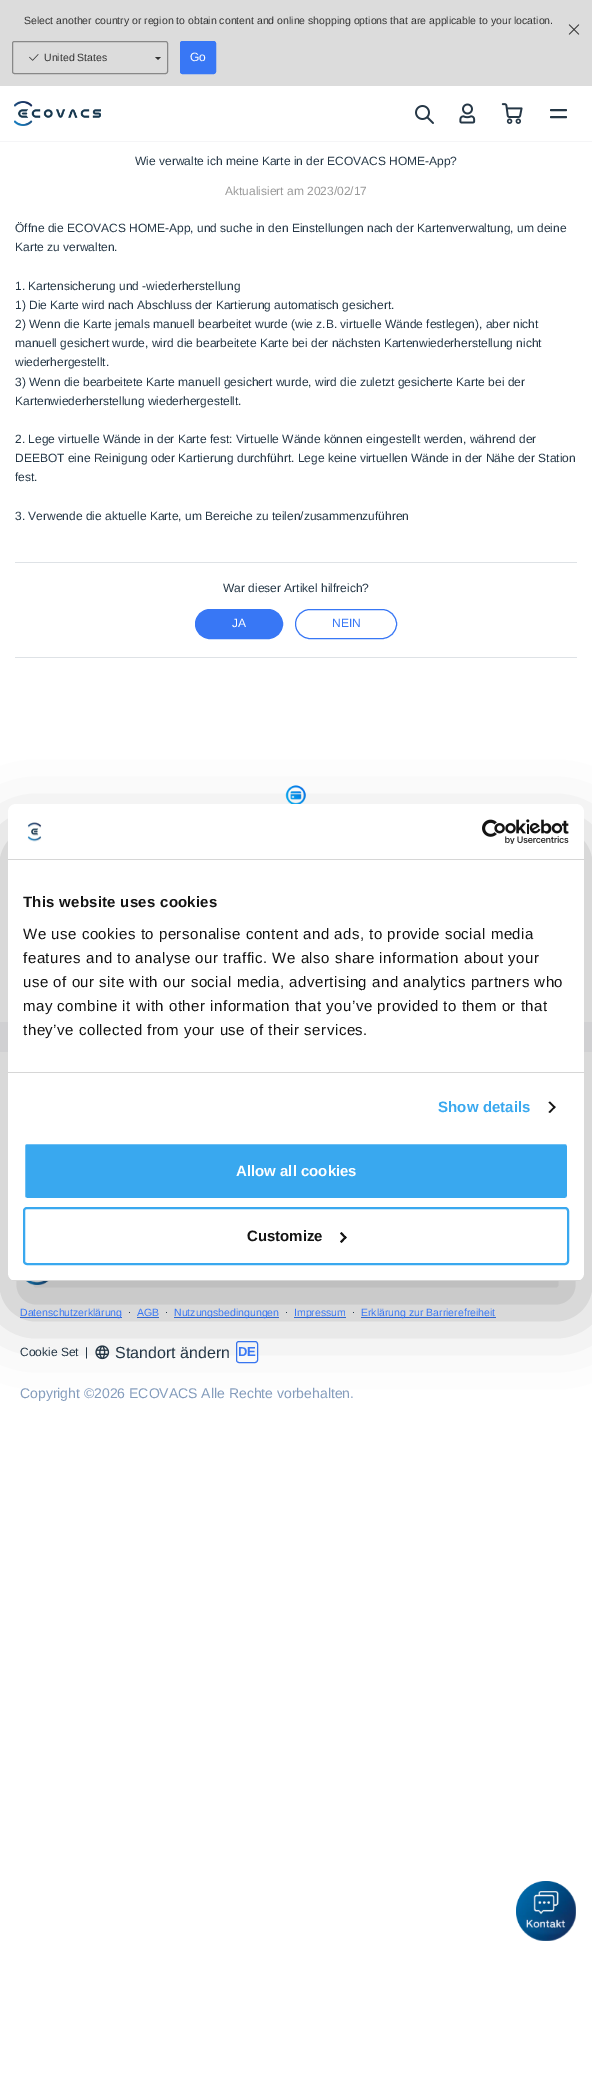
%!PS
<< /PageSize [592 2085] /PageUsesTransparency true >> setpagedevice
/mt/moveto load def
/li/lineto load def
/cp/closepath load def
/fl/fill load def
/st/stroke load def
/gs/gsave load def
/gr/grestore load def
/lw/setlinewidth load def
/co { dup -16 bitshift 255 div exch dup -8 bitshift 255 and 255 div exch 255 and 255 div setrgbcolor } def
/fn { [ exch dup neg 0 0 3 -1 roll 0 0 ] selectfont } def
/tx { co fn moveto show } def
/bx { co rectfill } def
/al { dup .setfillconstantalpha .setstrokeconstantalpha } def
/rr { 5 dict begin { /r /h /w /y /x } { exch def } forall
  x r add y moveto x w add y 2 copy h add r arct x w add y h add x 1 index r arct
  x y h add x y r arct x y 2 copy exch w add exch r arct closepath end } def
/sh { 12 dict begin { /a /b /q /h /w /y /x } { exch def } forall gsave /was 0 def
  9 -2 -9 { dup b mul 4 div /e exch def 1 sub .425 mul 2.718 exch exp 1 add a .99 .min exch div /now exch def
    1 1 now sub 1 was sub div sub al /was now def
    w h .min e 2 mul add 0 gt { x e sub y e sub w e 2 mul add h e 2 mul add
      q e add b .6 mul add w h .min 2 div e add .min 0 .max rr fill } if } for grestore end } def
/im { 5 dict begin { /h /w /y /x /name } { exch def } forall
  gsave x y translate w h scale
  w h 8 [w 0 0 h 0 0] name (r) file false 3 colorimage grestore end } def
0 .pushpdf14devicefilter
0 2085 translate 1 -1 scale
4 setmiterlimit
0 0 592 2085 16#FFFFFF bx
0 0 592 86 16#DCDCDC bx
(media/1.raw) 568 24 12 11 im
16#888888 co
12.5 41.5 155 32 2 rr st
(media/2.raw) 29 54 10 7 im
16#333333 co
155 57 mt 161 57 li 158 60 li cp fl
16#3877F5 co
180.5 41.5 35 32 2 rr gs fl gr
st
0 141 592 1 16#F5F5F7 bx
(media/3.raw) 14 101 87 25 im
(media/4.raw) 415 105 19 19 im
(media/5.raw) 459 103 17 21 im
(media/6.raw) 501 103 22 21 im
16#253746 co
2 lw
1 setlinecap
551 110 mt 566 110 li 551 117 mt 566 117 li st
15 562 562 1 16#DEE2E6 bx
15 657 562 1 16#DEE2E6 bx
16#3877F5 co
195.5 609.5 87 29 14.5 rr gs fl gr
1 lw
0 setlinecap
st
295.5 609.5 101 29 14.5 rr st
(media/7.raw) 285 785 21 19 im
0 1022 592 30 16#F5F5F7 bx
(media/8.raw) 26 1281 23 4 im
20 1317 102 1 16#3877F5 bx
137 1317 22 1 16#3877F5 bx
174 1317 105 1 16#3877F5 bx
294 1317 52 1 16#3877F5 bx
361 1317 135 1 16#3877F5 bx
(media/9.raw) 95 1345 15 15 im
236.5 1341.5 21 21 2.5 rr st
16#000000 co
8 836 576 477 8 34 .3 sh
16#FFFFFF co
8 804 576 477 8 rr fl
8 859 576 1 16#D6D6D6 bx
(media/10.raw) 27 822 15 20 im
(media/11.raw) 482 819 87 25 im
8 1072 576 1 16#D6D6D6 bx
16#141414 co
550 1101.5 mt 555.5 1107 li 554.5 1108.5 li 548.5 1102.5 li cp fl
554.5 1106 mt 555.5 1107 li 550 1113 li 548.5 1112 li cp fl
gs
8 804 576 477 8 rr clip newpath
8 1280 576 1 16#D6D6D6 bx
gr
16#39A8EF co
24 1143 544 56 3 rr gs fl gr
16#FFFFFF co
2 lw
st
16#39A8EF co
24 1208 544 56 3 rr st
16#141414 co
341.5 1232 mt 346.5 1237.5 li 345.5 1239 li 340 1233.5 li cp fl
345.5 1236 mt 346.5 1237.5 li 341.5 1243 li 340 1241.5 li cp fl
(media/12.raw) 516 1881 60 60 im
(Select another country or region to obtain content and online shopping options that are applicable to your location.) 24 24 /LiberationSans-Regular 10.5 16#333333 tx
(United States) 44 61 /LiberationSans-Regular 10.5 16#333333 tx
(Go) 190 61 /LiberationSans-Regular 12 16#FFFFFF tx
(Wie verwalte ich meine Karte in der ECOVACS HOME-App?) 135 165 /LiberationSans-Regular 12 16#253746 tx
(Aktualisiert am 2023/02/17) 225 195 /LiberationSans-Regular 12 16#999999 tx
(Öffne die ECOVACS HOME-App, und suche in den Einstellungen nach der Kartenverwaltung, um deine) 15 232 /LiberationSans-Regular 12 16#253746 tx
(Karte zu verwalten.) 15 251 /LiberationSans-Regular 12 16#253746 tx
(1. Kartensicherung und -wiederherstellung) 15 290 /LiberationSans-Regular 12 16#253746 tx
(1\) Die Karte wird nach Abschluss der Kartierung automatisch gesichert.) 15 309 /LiberationSans-Regular 12 16#253746 tx
(2\) Wenn die Karte jemals manuell bearbeitet wurde \(wie z.B. virtuelle Wände festlegen\), aber nicht) 15 328 /LiberationSans-Regular 12 16#253746 tx
(manuell gesichert wurde, wird die bearbeitete Karte bei der nächsten Kartenwiederherstellung nicht) 15 347 /LiberationSans-Regular 12 16#253746 tx
(wiederhergestellt.) 15 366 /LiberationSans-Regular 12 16#253746 tx
(3\) Wenn die bearbeitete Karte manuell gesichert wurde, wird die zuletzt gesicherte Karte bei der) 15 386 /LiberationSans-Regular 12 16#253746 tx
(Kartenwiederherstellung wiederhergestellt.) 15 405 /LiberationSans-Regular 12 16#253746 tx
(2. Lege virtuelle Wände in der Karte fest: Virtuelle Wände können eingestellt werden, während der) 15 443 /LiberationSans-Regular 12 16#253746 tx
(DEEBOT eine Reinigung oder Kartierung durchführt. Lege keine virtuellen Wände in der Nähe der Station) 15 462 /LiberationSans-Regular 12 16#253746 tx
(fest.) 15 481 /LiberationSans-Regular 12 16#253746 tx
(3. Verwende die aktuelle Karte, um Bereiche zu teilen/zusammenzuführen) 15 520 /LiberationSans-Regular 12 16#253746 tx
(War dieser Artikel hilfreich?) 223 592 /LiberationSans-Regular 12 16#253746 tx
(JA) 232 627 /LiberationSans-Regular 12 16#FFFFFF tx
(NEIN) 332 627 /LiberationSans-Regular 12 16#3877F5 tx
(Datenschutzerklärung) 20 1316 /LiberationSans-Regular 10.5 16#3877F5 tx
(·) 128 1315 /LiberationSans-Regular 9 16#253746 tx
(AGB) 137 1316 /LiberationSans-Regular 10.5 16#3877F5 tx
(·) 165 1315 /LiberationSans-Regular 9 16#253746 tx
(Nutzungsbedingungen) 174 1316 /LiberationSans-Regular 10.5 16#3877F5 tx
(·) 285 1315 /LiberationSans-Regular 9 16#253746 tx
(Impressum) 294 1316 /LiberationSans-Regular 10.5 16#3877F5 tx
(·) 352 1315 /LiberationSans-Regular 9 16#253746 tx
(Erklärung zur Barrierefreiheit) 361 1316 /LiberationSans-Regular 10.5 16#3877F5 tx
(Cookie Set) 20 1356 /LiberationSans-Regular 12 16#253746 tx
(|) 85 1356 /LiberationSans-Regular 12 16#253746 tx
(Standort ändern) 115 1358 /LiberationSans-Regular 16 16#253746 tx
(DE) 238 1356 /LiberationSans-Bold 13 16#3877F5 tx
(Copyright ©2026 ECOVACS Alle Rechte vorbehalten.) 20 1398 /LiberationSans-Regular 14 16#849CBC tx
/LiberationSans-Bold 15 fn
16#141414 co
23 907 mt .25 0 (This website uses cookies) ashow
/LiberationSans-Regular 15 fn
23 939 mt .5 0 (We use cookies to personalise content and ads, to provide social media) ashow
23 963 mt .5 0 (features and to analyse our traffic. We also share information about your) ashow
23 987 mt .5 0 (use of our site with our social media, advertising and analytics partners who) ashow
23 1011 mt .5 0 (may combine it with other information that you’ve provided to them or that) ashow
23 1035 mt .5 0 (they’ve collected from your use of their services.) ashow
/LiberationSans-Bold 15 fn
16#39A8EF co
438 1112 mt .1 0 (Show details) ashow
(Allow all cookies) 236 1176 /LiberationSans-Bold 15 16#FFFFFF tx
(Customize) 247 1241 /LiberationSans-Bold 15 16#141414 tx
.poppdf14devicefilter showpage
